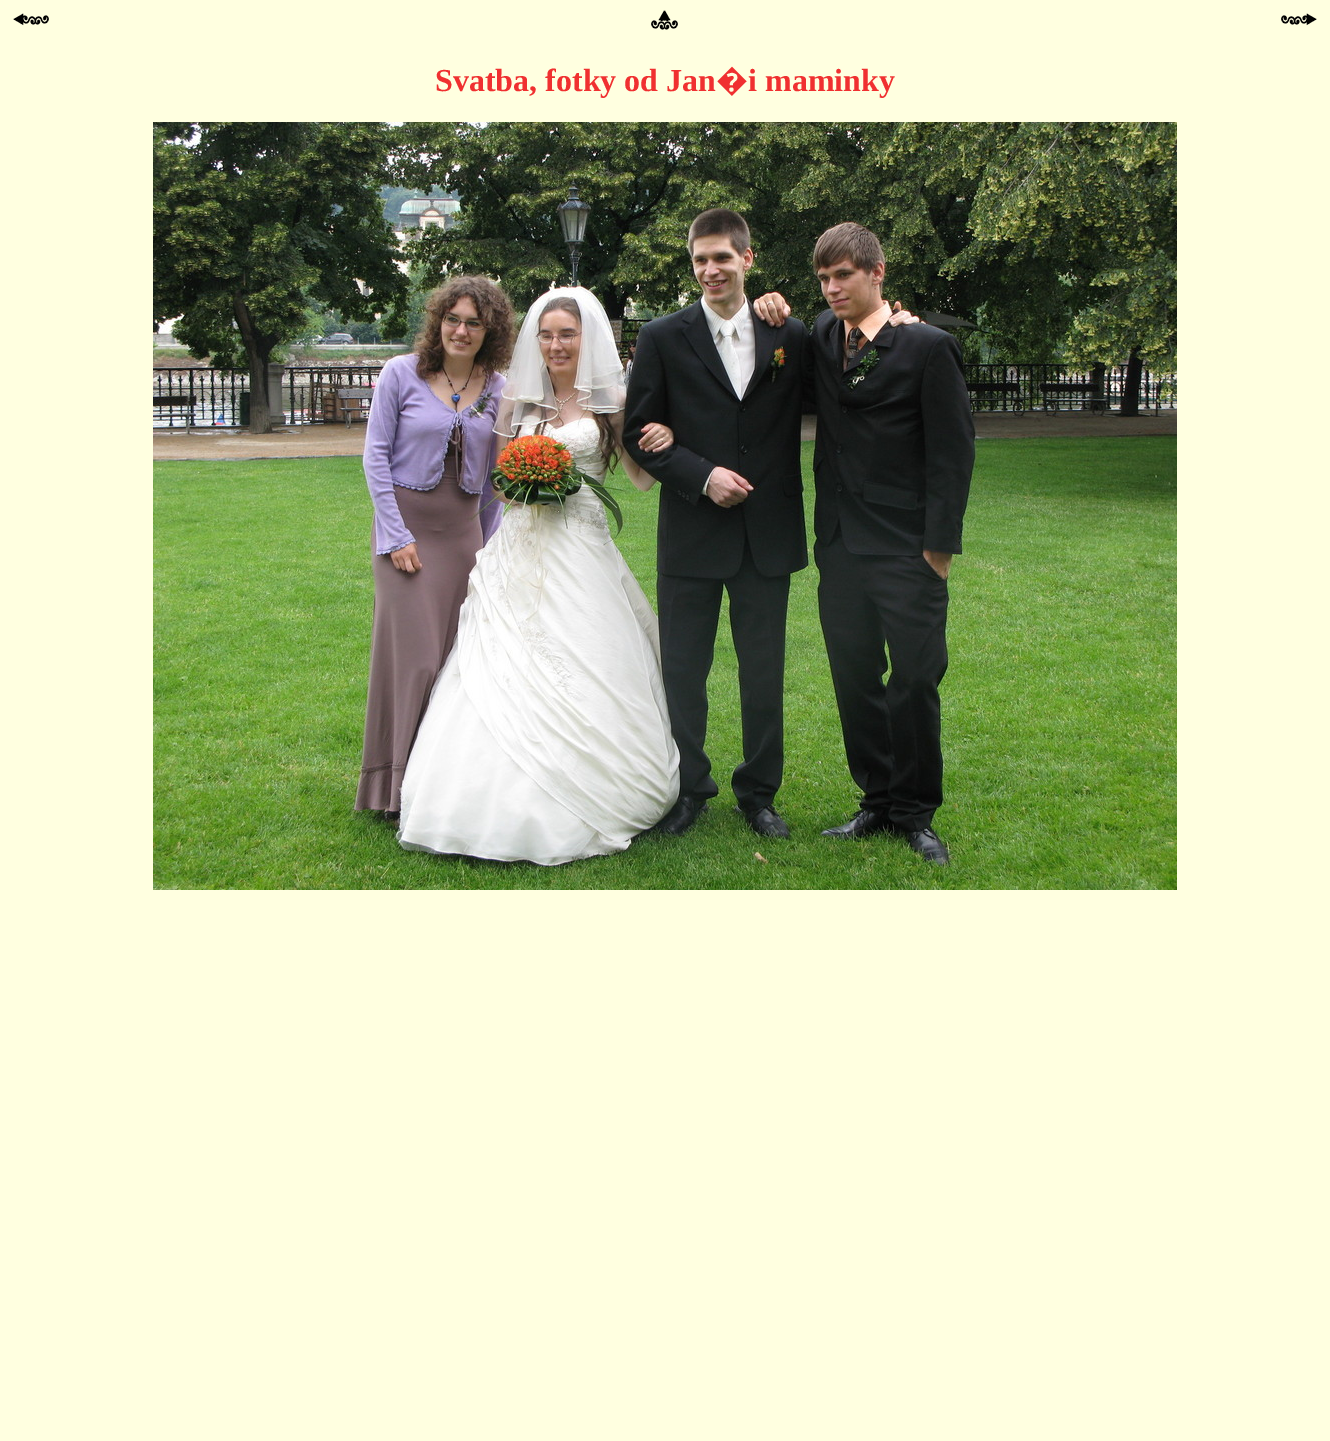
%!PS
<< /PageSize [1330 1441] >> setpagedevice
/co { dup -16 bitshift 255 div exch dup -8 bitshift 255 and 255 div exch 255 and 255 div setrgbcolor } def
/fn { [ exch dup neg 0 0 3 -1 roll 0 0 ] selectfont } def
/tx { co fn moveto show } def
/bx { co rectfill } def
/im { 5 dict begin { /h /w /y /x /name } { exch def } forall
  gsave x y translate w h scale
  w h 8 [w 0 0 h 0 0] name (r) file false 3 colorimage grestore end } def
0 1441 translate 1 -1 scale
4 setmiterlimit
0 0 1330 1441 16#FFFFE0 bx
(media/1.raw) 13 13 36 13 im
(media/2.raw) 651 10 27 20 im
(media/3.raw) 1281 13 36 13 im
(media/4.raw) 153 122 1024 768 im
(Svatba, fotky od Jan) 435 91 /LiberationSerif-Bold 32 16#F03030 tx
(�) 716 91 /NotoSans-Bold 32 16#F03030 tx
(i maminky) 748 91 /LiberationSerif-Bold 32 16#F03030 tx
showpage
